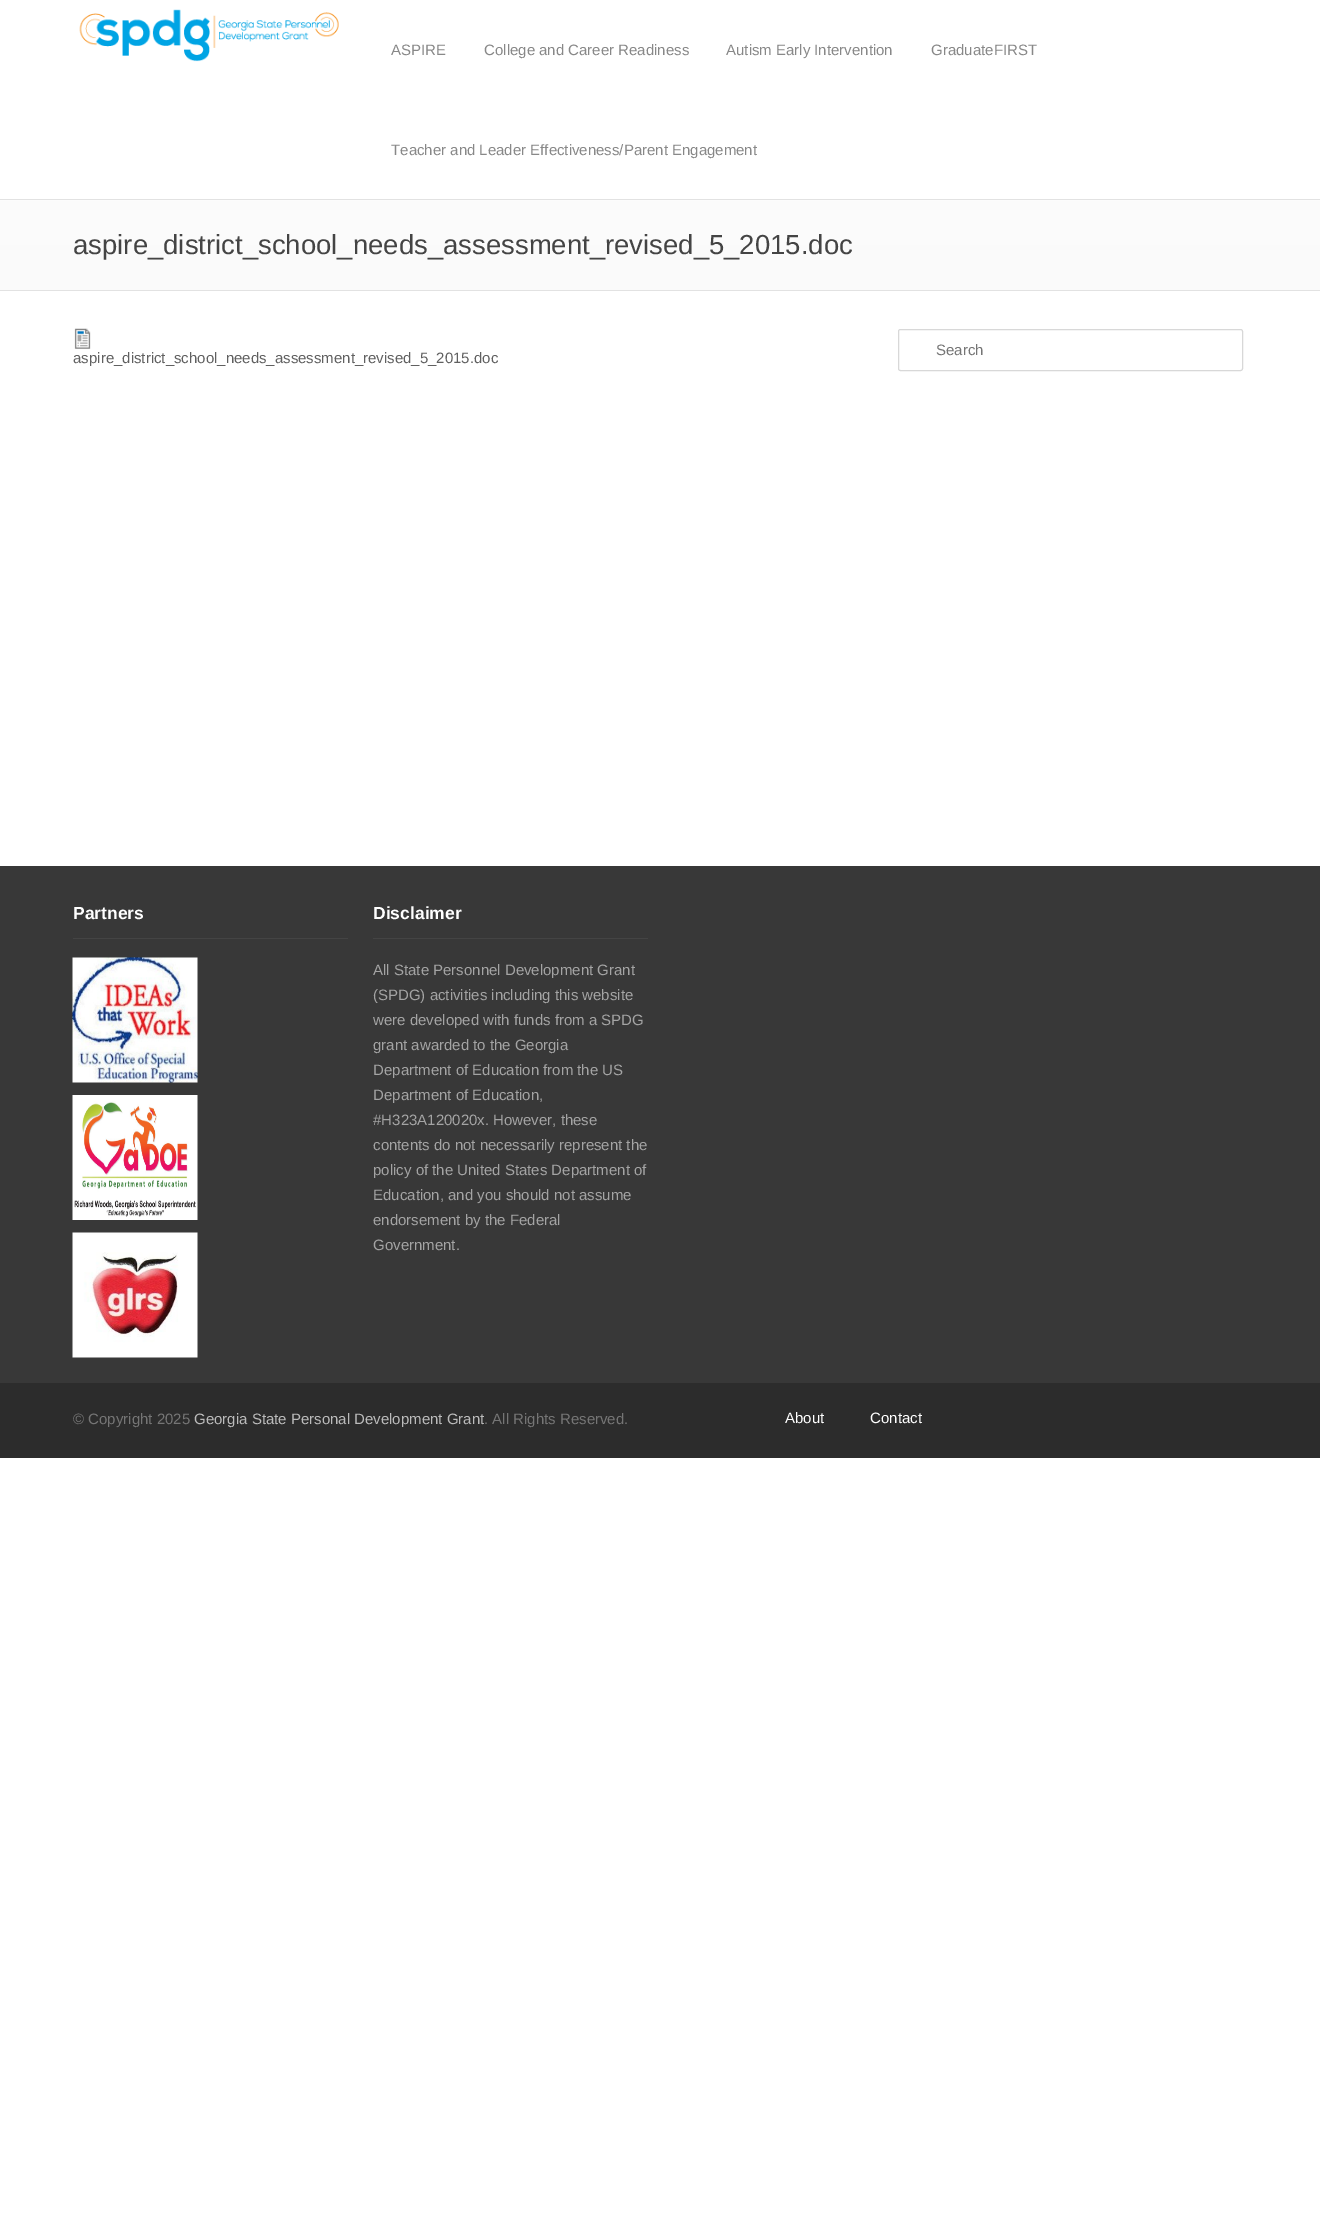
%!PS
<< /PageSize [1320 2223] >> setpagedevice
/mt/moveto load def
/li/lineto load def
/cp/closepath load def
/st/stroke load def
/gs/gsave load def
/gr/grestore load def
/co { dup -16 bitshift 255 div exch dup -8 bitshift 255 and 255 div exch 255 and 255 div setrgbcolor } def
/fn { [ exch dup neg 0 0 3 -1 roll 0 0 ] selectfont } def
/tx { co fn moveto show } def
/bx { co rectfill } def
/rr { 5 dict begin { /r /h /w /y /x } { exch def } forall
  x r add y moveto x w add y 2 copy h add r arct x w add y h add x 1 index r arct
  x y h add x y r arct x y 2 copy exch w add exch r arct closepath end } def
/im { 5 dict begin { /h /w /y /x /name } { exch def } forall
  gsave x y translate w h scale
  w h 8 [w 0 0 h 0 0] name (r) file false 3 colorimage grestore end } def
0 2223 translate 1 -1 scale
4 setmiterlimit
0 0 1320 2223 16#FFFFFF bx
(media/1.raw) 79 9 260 53 im
gs 0 200 mt 1320 200 li 1320 290 li 0 290 li cp clip newpath
<< /ShadingType 2 /ColorSpace /DeviceRGB /Coords [660 290 660 200] /Extend [true true] /Function << /FunctionType 2 /Domain [0 1] /C0 [.98 .98 .98] /C1 [.988 .988 .988] /N 1 >> >> shfill gr
0 199 1320 1 16#E2E2E2 bx
0 290 1320 1 16#E2E2E2 bx
16#D8D8D8 co
898.5 329.5 344 41 2 rr st
(media/2.raw) 74 328 17 21 im
0 866 1320 517 16#383838 bx
73 938 275 1 16#444444 bx
(media/3.raw) 72 957 126 126 im
(media/4.raw) 72 1095 126 125 im
(media/5.raw) 72 1232 126 126 im
373 938 275 1 16#444444 bx
0 1383 1320 75 16#2C2C2C bx
(ASPIRE) 391 55 /LiberationSans-Regular 15 16#888888 tx
(College and Career Readiness) 484 55 /LiberationSans-Regular 15 16#888888 tx
(Autism Early Intervention) 726 55 /LiberationSans-Regular 15 16#888888 tx
(GraduateFIRST) 931 55 /LiberationSans-Regular 15 16#888888 tx
(Teacher and Leader Effectiveness/Parent Engagement) 391 155 /LiberationSans-Regular 15 16#888888 tx
(aspire_district_school_needs_assessment_revised_5_2015.doc) 73 254 /LiberationSans-Regular 27.5 16#444444 tx
(Search) 936 355 /LiberationSans-Regular 15 16#757575 tx
(aspire_district_school_needs_assessment_revised_5_2015.doc) 73 363 /LiberationSans-Regular 15 16#606060 tx
(Partners) 73 919 /LiberationSans-Bold 17.5 16#FFFFFF tx
(Disclaimer) 373 919 /LiberationSans-Bold 17.5 16#FFFFFF tx
(All State Personnel Development Grant) 373 975 /LiberationSans-Regular 15 16#A4A4A4 tx
(\(SPDG\) activities including this website) 373 1000 /LiberationSans-Regular 15 16#A4A4A4 tx
(were developed with funds from a SPDG) 373 1025 /LiberationSans-Regular 15 16#A4A4A4 tx
(grant awarded to the Georgia) 373 1050 /LiberationSans-Regular 15 16#A4A4A4 tx
(Department of Education from the US) 373 1075 /LiberationSans-Regular 15 16#A4A4A4 tx
(Department of Education,) 373 1100 /LiberationSans-Regular 15 16#A4A4A4 tx
(#H323A120020x. However, these) 373 1125 /LiberationSans-Regular 15 16#A4A4A4 tx
(contents do not necessarily represent the) 373 1150 /LiberationSans-Regular 15 16#A4A4A4 tx
(policy of the United States Department of) 373 1175 /LiberationSans-Regular 15 16#A4A4A4 tx
(Education, and you should not assume) 373 1200 /LiberationSans-Regular 15 16#A4A4A4 tx
(endorsement by the Federal) 373 1225 /LiberationSans-Regular 15 16#A4A4A4 tx
(Government.) 373 1250 /LiberationSans-Regular 15 16#A4A4A4 tx
(© Copyright 2025) 73 1424 /LiberationSans-Regular 15 16#757575 tx
(Georgia State Personal Development Grant) 194 1424 /LiberationSans-Regular 15 16#BBBBBB tx
(. All Rights Reserved.) 484 1424 /LiberationSans-Regular 15 16#757575 tx
(About) 785 1423 /LiberationSans-Regular 15 16#FFFFFF tx
(Contact) 870 1423 /LiberationSans-Regular 15 16#FFFFFF tx
showpage
